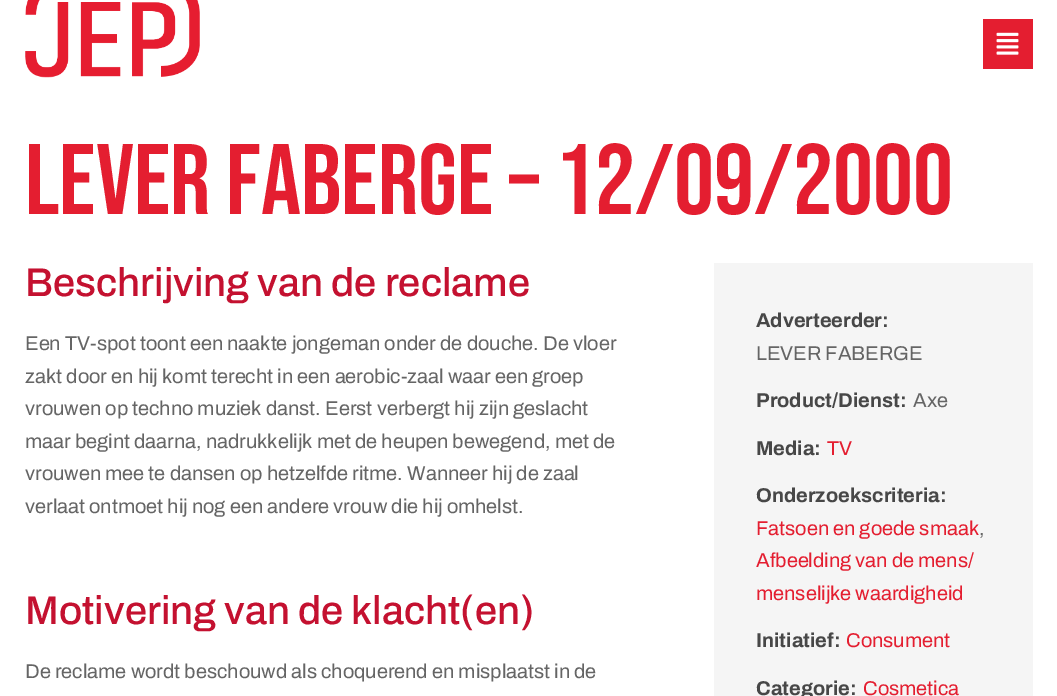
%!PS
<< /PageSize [1057 696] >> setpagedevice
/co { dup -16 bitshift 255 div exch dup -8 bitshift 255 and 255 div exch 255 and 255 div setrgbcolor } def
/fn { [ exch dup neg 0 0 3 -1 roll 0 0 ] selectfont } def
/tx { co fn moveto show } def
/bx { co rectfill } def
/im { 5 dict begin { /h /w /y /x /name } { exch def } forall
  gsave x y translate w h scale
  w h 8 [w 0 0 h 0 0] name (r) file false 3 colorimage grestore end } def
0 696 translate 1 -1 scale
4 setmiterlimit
0 0 1057 696 16#FFFFFF bx
(media/1.raw) 25 0 175 78 im
983 19 50 50 16#E41E30 bx
(media/2.raw) 996 32 23 23 im
714 263 319 433 16#F5F5F5 bx
(LEVER FABERGE – 12/09/2000) 25 214 /BebasNeue-Regular 100 16#E41E30 tx
(Beschrijving van de reclame) 25 296 /Archivo-Medium 40 16#C41130 tx
(Een TV-spot toont een naakte jongeman onder de douche. De vloer) 25 350 /Archivo-Regular 20 16#656565 tx
(zakt door en hij komt terecht in een aerobic-zaal waar een groep) 25 383 /Archivo-Regular 20 16#656565 tx
(vrouwen op techno muziek danst. Eerst verbergt hij zijn geslacht) 25 415 /Archivo-Regular 20 16#656565 tx
(maar begint daarna, nadrukkelijk met de heupen bewegend, met de) 25 448 /Archivo-Regular 20 16#656565 tx
(vrouwen mee te dansen op hetzelfde ritme. Wanneer hij de zaal) 25 480 /Archivo-Regular 20 16#656565 tx
(verlaat ontmoet hij nog een andere vrouw die hij omhelst.) 25 513 /Archivo-Regular 20 16#656565 tx
(Motivering van de klacht\(en\)) 25 624 /Archivo-Medium 40 16#C41130 tx
(De reclame wordt beschouwd als choquerend en misplaatst in de) 25 678 /Archivo-Regular 20 16#656565 tx
(Adverteerder:) 756 327 /Archivo-Bold 20 16#474747 tx
(LEVER FABERGE) 756 360 /Archivo-Regular 20 16#656565 tx
(Product/Dienst:) 756 407 /Archivo-Bold 20 16#474747 tx
(Axe) 913 407 /Archivo-Regular 20 16#656565 tx
(Media:) 756 455 /Archivo-Bold 20 16#474747 tx
(TV) 827 455 /Archivo-Regular 20 16#E41E30 tx
(Onderzoekscriteria:) 756 502 /Archivo-Bold 20 16#474747 tx
(Fatsoen en goede smaak) 756 535 /Archivo-Regular 20 16#E41E30 tx
(,) 979 535 /Archivo-Regular 20 16#656565 tx
(Afbeelding van de mens/) 756 567 /Archivo-Regular 20 16#E41E30 tx
(menselijke waardigheid) 756 600 /Archivo-Regular 20 16#E41E30 tx
(Initiatief:) 756 647 /Archivo-Bold 20 16#474747 tx
(Consument) 846 647 /Archivo-Regular 20 16#E41E30 tx
(Categorie:) 756 695 /Archivo-Bold 20 16#474747 tx
(Cosmetica) 863 695 /Archivo-Regular 20 16#E41E30 tx
showpage
